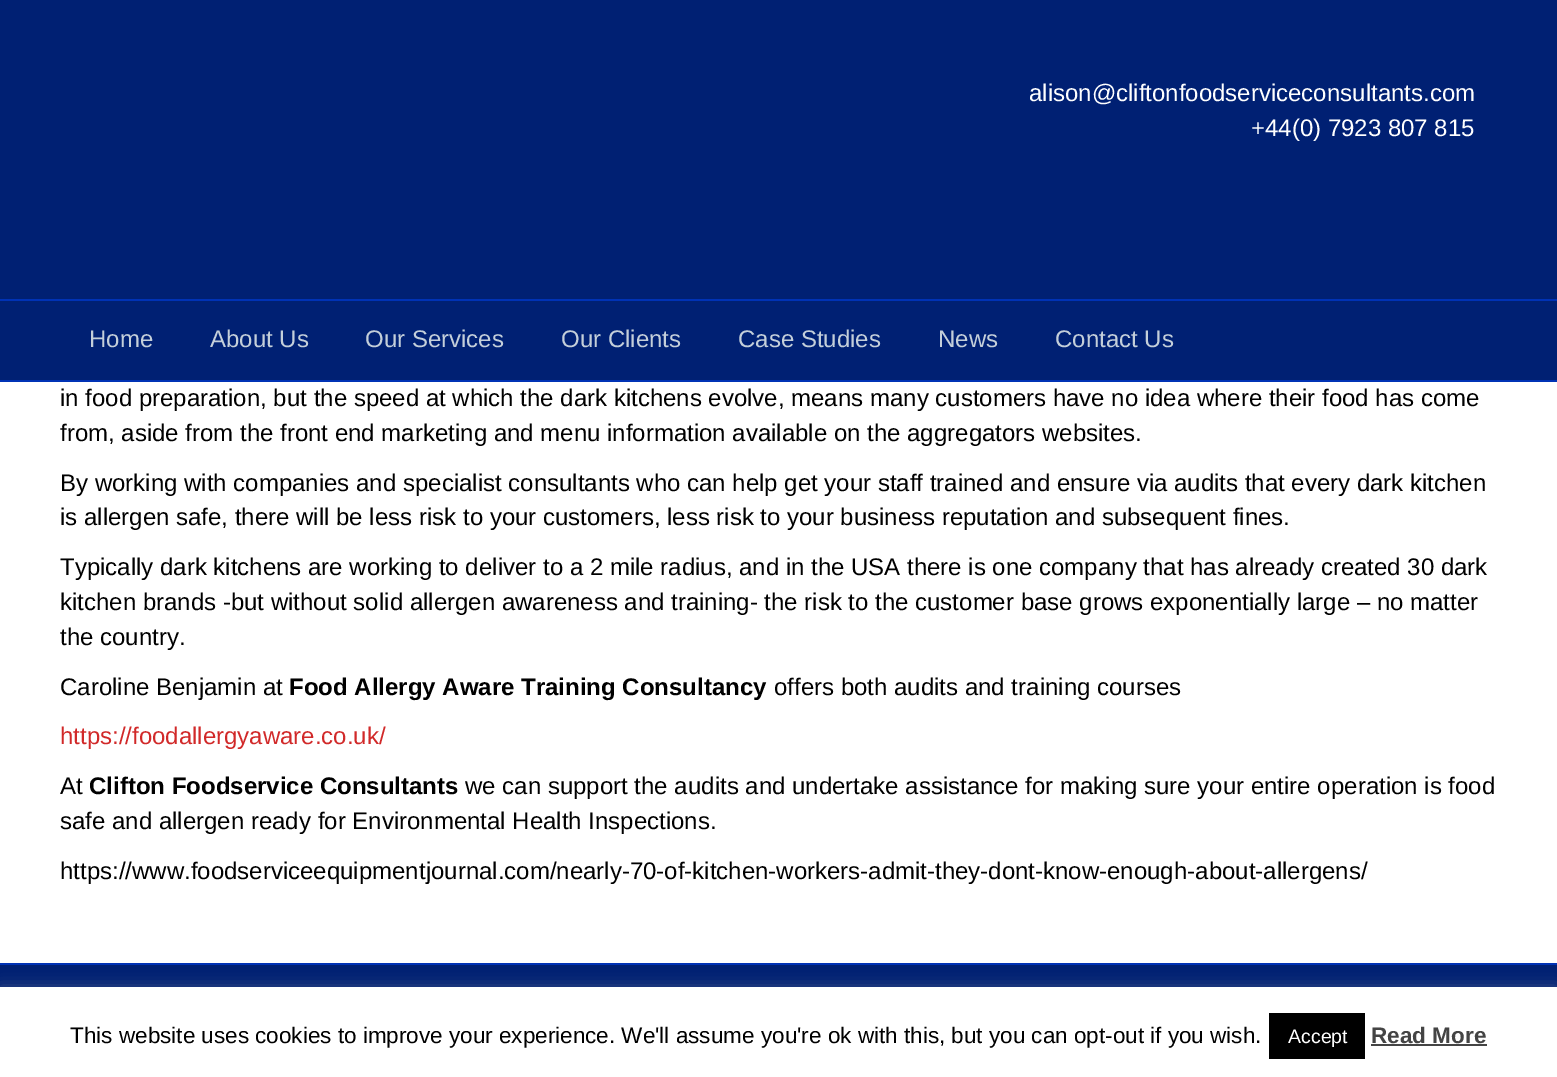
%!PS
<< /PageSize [1557 1077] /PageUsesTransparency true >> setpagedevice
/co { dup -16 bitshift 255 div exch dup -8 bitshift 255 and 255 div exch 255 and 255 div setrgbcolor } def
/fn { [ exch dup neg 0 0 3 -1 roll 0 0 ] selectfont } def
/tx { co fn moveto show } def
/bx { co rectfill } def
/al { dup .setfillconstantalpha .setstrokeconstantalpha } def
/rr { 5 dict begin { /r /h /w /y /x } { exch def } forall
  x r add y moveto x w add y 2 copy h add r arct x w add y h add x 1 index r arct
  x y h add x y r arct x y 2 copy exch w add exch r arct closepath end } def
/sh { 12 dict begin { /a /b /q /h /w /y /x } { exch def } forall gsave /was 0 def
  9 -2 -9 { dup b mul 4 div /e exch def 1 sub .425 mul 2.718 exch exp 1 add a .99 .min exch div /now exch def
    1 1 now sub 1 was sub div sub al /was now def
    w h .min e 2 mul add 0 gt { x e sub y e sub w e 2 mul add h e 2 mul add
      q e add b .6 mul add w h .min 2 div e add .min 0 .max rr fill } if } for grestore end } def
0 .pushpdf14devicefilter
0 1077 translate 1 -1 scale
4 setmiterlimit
0 0 1557 1077 16#002073 bx
0 299 1557 2 16#0032B5 bx
0 380 1557 2 16#0032B5 bx
0 382 1557 581 16#FFFFFF bx
0 963 1557 2 16#0032B5 bx
16#ACABAB co
0 986 1557 90 0 7.5 .3 sh
0 987 1557 90 16#FFFFFF bx
1269 1013 96 46 16#000000 bx
1371 1044 116 2 16#444444 bx
(alison@cliftonfoodserviceconsultants.com) 1029 101 /LiberationSans-Regular 24 16#FFFFFF tx
(+44\(0\) 7923 807 815) 1251 136 /LiberationSans-Regular 24 16#FFFFFF tx
(Home) 89 347 /LiberationSans-Regular 24 16#C4CFDA tx
(About Us) 210 347 /LiberationSans-Regular 24 16#C4CFDA tx
(Our Services) 365 347 /LiberationSans-Regular 24 16#C4CFDA tx
(Our Clients) 561 347 /LiberationSans-Regular 24 16#C4CFDA tx
(Case Studies) 738 347 /LiberationSans-Regular 24 16#C4CFDA tx
(News) 938 347 /LiberationSans-Regular 24 16#C4CFDA tx
(Contact Us) 1055 347 /LiberationSans-Regular 24 16#C4CFDA tx
(in food preparation, but the speed at which the dark kitchens evolve, means many customers have no idea where their food has come) 60 406 /LiberationSans-Regular 24 16#000000 tx
(from, aside from the front end marketing and menu information available on the aggregators websites.) 60 441 /LiberationSans-Regular 24 16#000000 tx
(By working with companies and specialist consultants who can help get your staff trained and ensure via audits that every dark kitchen) 60 491 /LiberationSans-Regular 24 16#000000 tx
(is allergen safe, there will be less risk to your customers, less risk to your business reputation and subsequent fines.) 60 525 /LiberationSans-Regular 24 16#000000 tx
(Typically dark kitchens are working to deliver to a 2 mile radius, and in the USA there is one company that has already created 30 dark) 60 575 /LiberationSans-Regular 24 16#000000 tx
(kitchen brands -but without solid allergen awareness and training- the risk to the customer base grows exponentially large – no matter) 60 610 /LiberationSans-Regular 24 16#000000 tx
(the country.) 60 645 /LiberationSans-Regular 24 16#000000 tx
(Caroline Benjamin at) 60 695 /LiberationSans-Regular 24 16#000000 tx
(Food Allergy Aware Training Consultancy) 289 695 /LiberationSans-Bold 24 16#000000 tx
(offers both audits and training courses) 774 695 /LiberationSans-Regular 24 16#000000 tx
(https://foodallergyaware.co.uk/) 60 744 /LiberationSans-Regular 24 16#D12929 tx
(At) 60 794 /LiberationSans-Regular 24 16#000000 tx
(Clifton Foodservice Consultants) 89 794 /LiberationSans-Bold 24 16#000000 tx
(we can support the audits and undertake assistance for making sure your entire operation is food) 465 794 /LiberationSans-Regular 24 16#000000 tx
(safe and allergen ready for Environmental Health Inspections.) 60 829 /LiberationSans-Regular 24 16#000000 tx
(https://www.foodserviceequipmentjournal.com/nearly-70-of-kitchen-workers-admit-they-dont-know-enough-about-allergens/) 60 879 /LiberationSans-Regular 24 16#000000 tx
(This website uses cookies to improve your experience. We'll assume you're ok with this, but you can opt-out if you wish.) 70 1043 /LiberationSans-Regular 22.5 16#000000 tx
(Accept) 1288 1043 /LiberationSans-Regular 19.5 16#FFFFFF tx
(Read More) 1371 1043 /LiberationSans-Bold 22.5 16#444444 tx
.poppdf14devicefilter showpage
